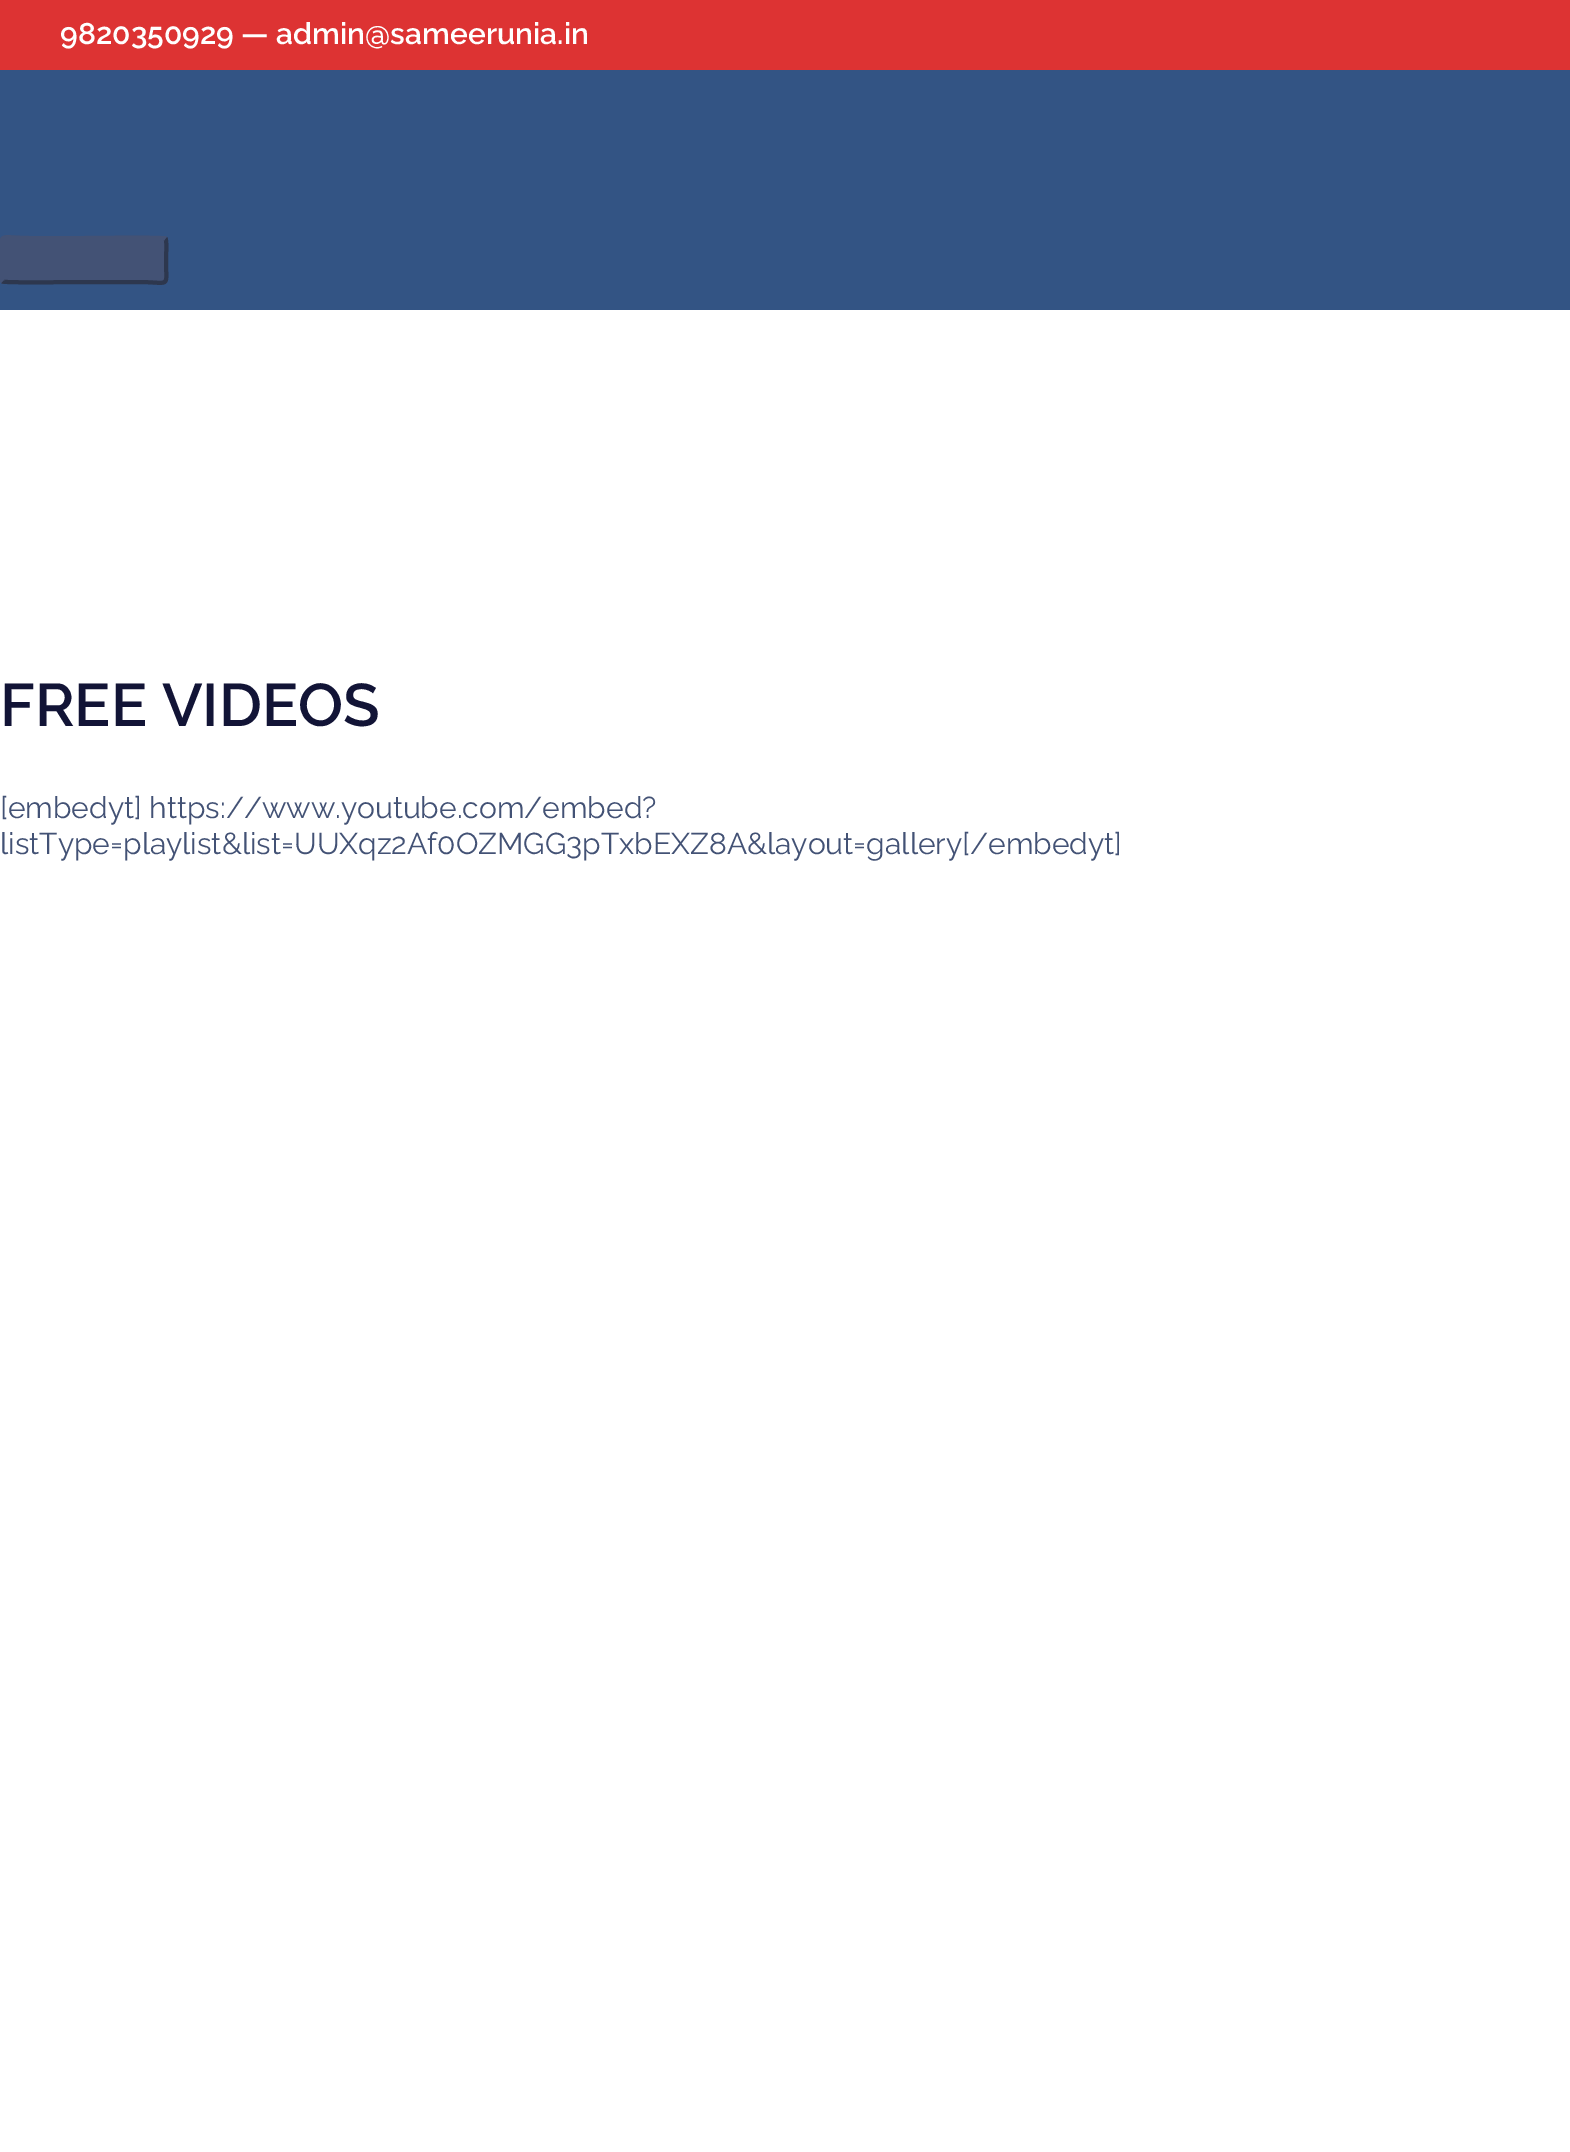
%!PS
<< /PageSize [1570 2152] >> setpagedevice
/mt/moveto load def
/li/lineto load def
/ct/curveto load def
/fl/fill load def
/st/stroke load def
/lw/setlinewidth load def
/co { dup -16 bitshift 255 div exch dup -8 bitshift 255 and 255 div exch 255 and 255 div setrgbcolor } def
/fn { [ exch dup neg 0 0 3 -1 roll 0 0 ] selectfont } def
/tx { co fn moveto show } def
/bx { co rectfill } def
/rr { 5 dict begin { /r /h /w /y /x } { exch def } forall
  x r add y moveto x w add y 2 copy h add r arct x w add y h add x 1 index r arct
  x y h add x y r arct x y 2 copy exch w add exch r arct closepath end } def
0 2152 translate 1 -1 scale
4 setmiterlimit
0 0 1570 2152 16#FFFFFF bx
0 0 1570 70 16#DD3333 bx
0 70 1570 240 16#335484 bx
16#435275 co
0 236 168 48 4 rr fl
16#2D374E co
4 lw
165.5 238.5 mt 167 240 166 257 166 260 ct 166 289.5 171.5 282 137.5 282 ct 84 282 li 77 282 4.5 283 2.5 281.5 ct st
16#435275 co
2.5 281.5 mt 1 280 2 263 2 260 ct 2 230.5 -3.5 238 30.5 238 ct 84 238 li 91 238 163.5 237 165.5 238.5 ct st
(9820350929 — admin@sameerunia.in) 60 44 /Raleway-SemiBold 30 16#FFFFFF tx
(FREE VIDEOS) 0 726 /Raleway-SemiBold 60 16#121436 tx
([embedyt] https://www.youtube.com/embed?) 0 818 /Raleway-Regular 30 16#435275 tx
(listType=playlist&list=UUXqz2Af0OZMGG3pTxbEXZ8A&layout=gallery[/embedyt]) 0 854 /Raleway-Regular 30 16#435275 tx
showpage
